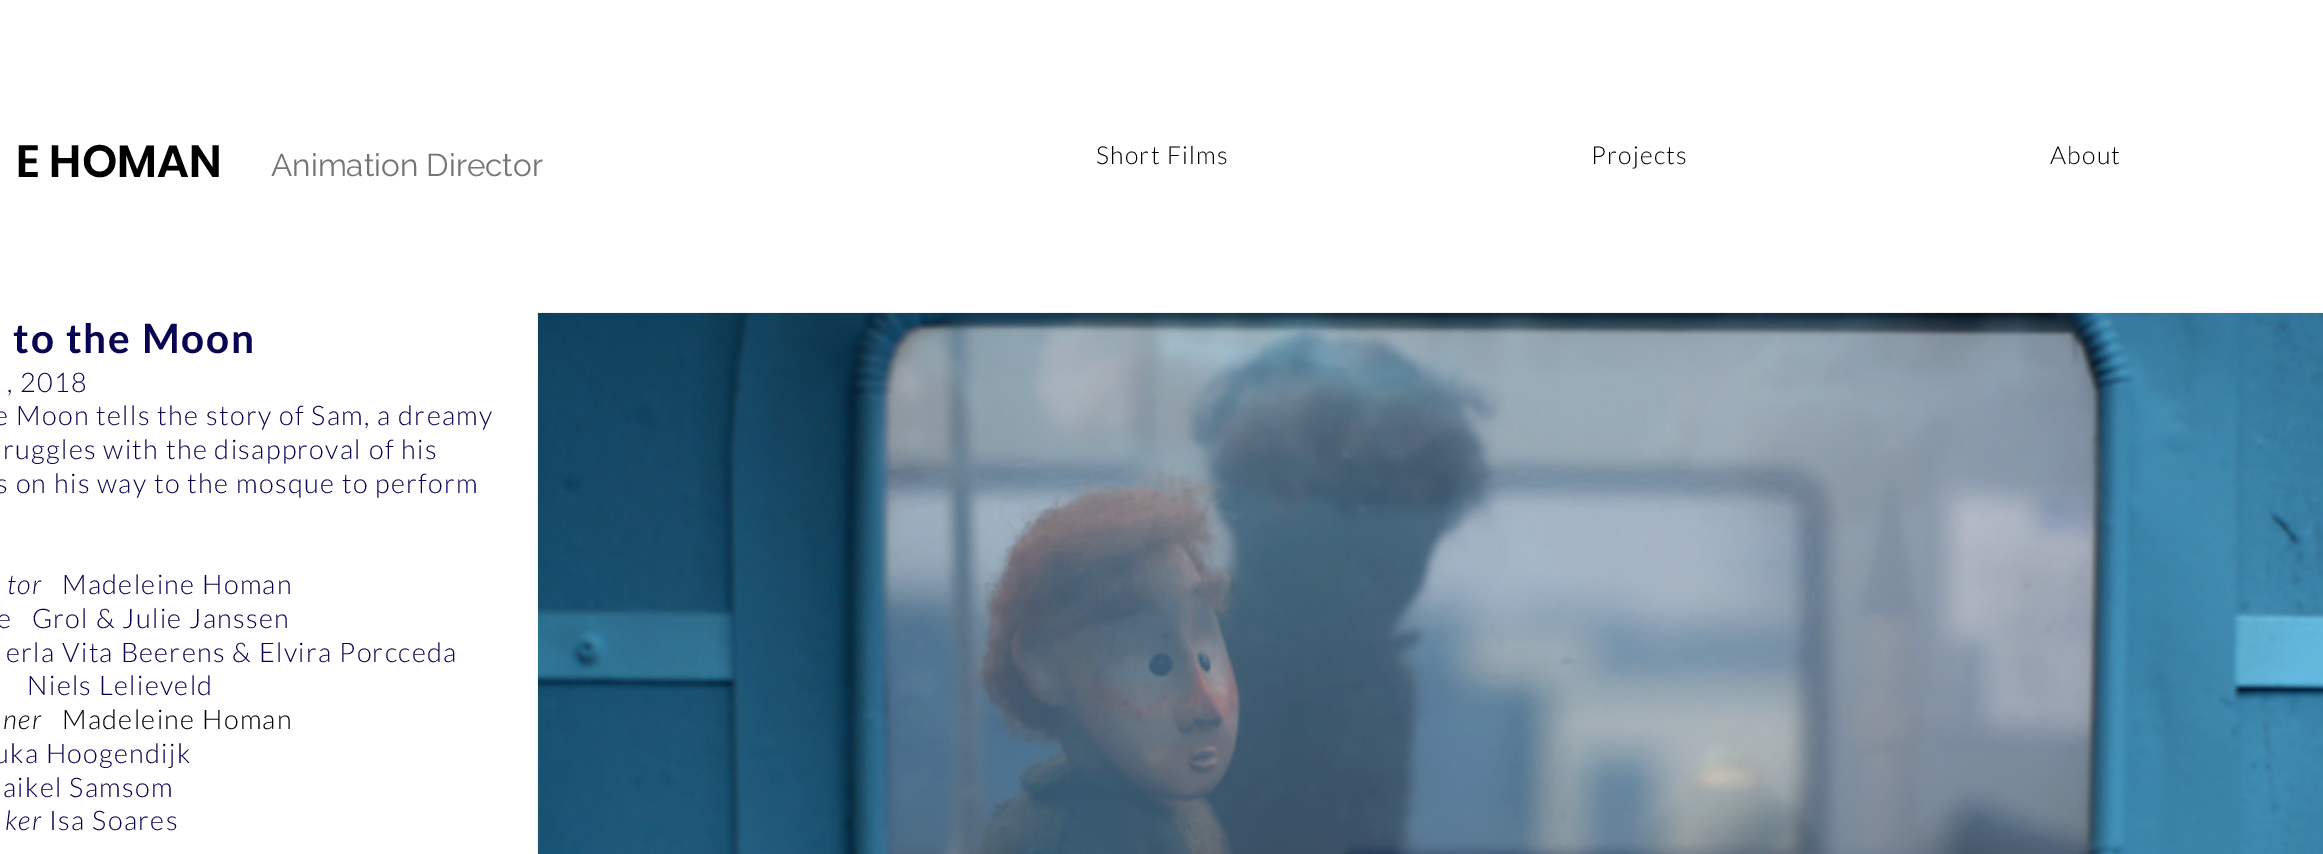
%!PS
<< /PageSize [2323 854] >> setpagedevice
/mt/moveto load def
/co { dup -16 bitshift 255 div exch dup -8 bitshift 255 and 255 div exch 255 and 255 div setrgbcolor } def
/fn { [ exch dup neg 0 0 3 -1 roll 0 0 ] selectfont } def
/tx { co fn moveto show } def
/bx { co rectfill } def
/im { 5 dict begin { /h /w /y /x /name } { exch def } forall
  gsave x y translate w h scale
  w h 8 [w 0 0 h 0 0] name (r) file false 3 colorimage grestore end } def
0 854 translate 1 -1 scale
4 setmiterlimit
0 0 2323 854 16#FFFFFF bx
(media/1.raw) 537 312 1786 542 im
(E HOMAN) 16 177 /Poppins-SemiBold 45 16#000000 tx
(Animation Director) 271 176 /Raleway-Regular 31.5 16#757575 tx
/Lato-Light 24.75 fn
16#000000 co
1096 164 mt 1.25 0 (Short Films) ashow
1591 164 mt 1.25 0 (Projects) ashow
2050 164 mt 1.25 0 (About) ashow
/Lato-Bold 40.5 fn
16#080451 co
13 353 mt 2 0 (to the Moon) ashow
/Lato-Light 27 fn
7 392 mt 1.35 0 (, 2018) ashow
-6 425 mt 1.35 0 (e Moon tells the story of Sam, a dreamy) ashow
3 459 mt 1.35 0 (ruggles with the disapproval of his) ashow
-4 493 mt 1.35 0 (s on his way to the mosque to perform) ashow
/Lato-LightItalic 27 fn
7 594 mt 1.35 0 (tor) ashow
/Lato-Light 27 fn
62 594 mt 1.35 0 (Madeleine Homan) ashow
-3 628 mt 1.35 0 (e   Grol & Julie Janssen) ashow
6 662 mt 1.35 0 (erla Vita Beerens & Elvira Porcceda) ashow
27 695 mt 1.35 0 (Niels Lelieveld) ashow
/Lato-LightItalic 27 fn
16#000000 co
3 729 mt 1.35 0 (ner) ashow
/Lato-Light 27 fn
62 729 mt 1.35 0 (Madeleine Homan) ashow
16#080451 co
-6 763 mt 1.35 0 (uka Hoogendijk) ashow
3 797 mt 1.35 0 (aikel Samsom) ashow
/Lato-LightItalic 27 fn
5 830 mt 1.35 0 (ker) ashow
/Lato-Light 27 fn
49 830 mt 1.35 0 (Isa Soares) ashow
showpage
